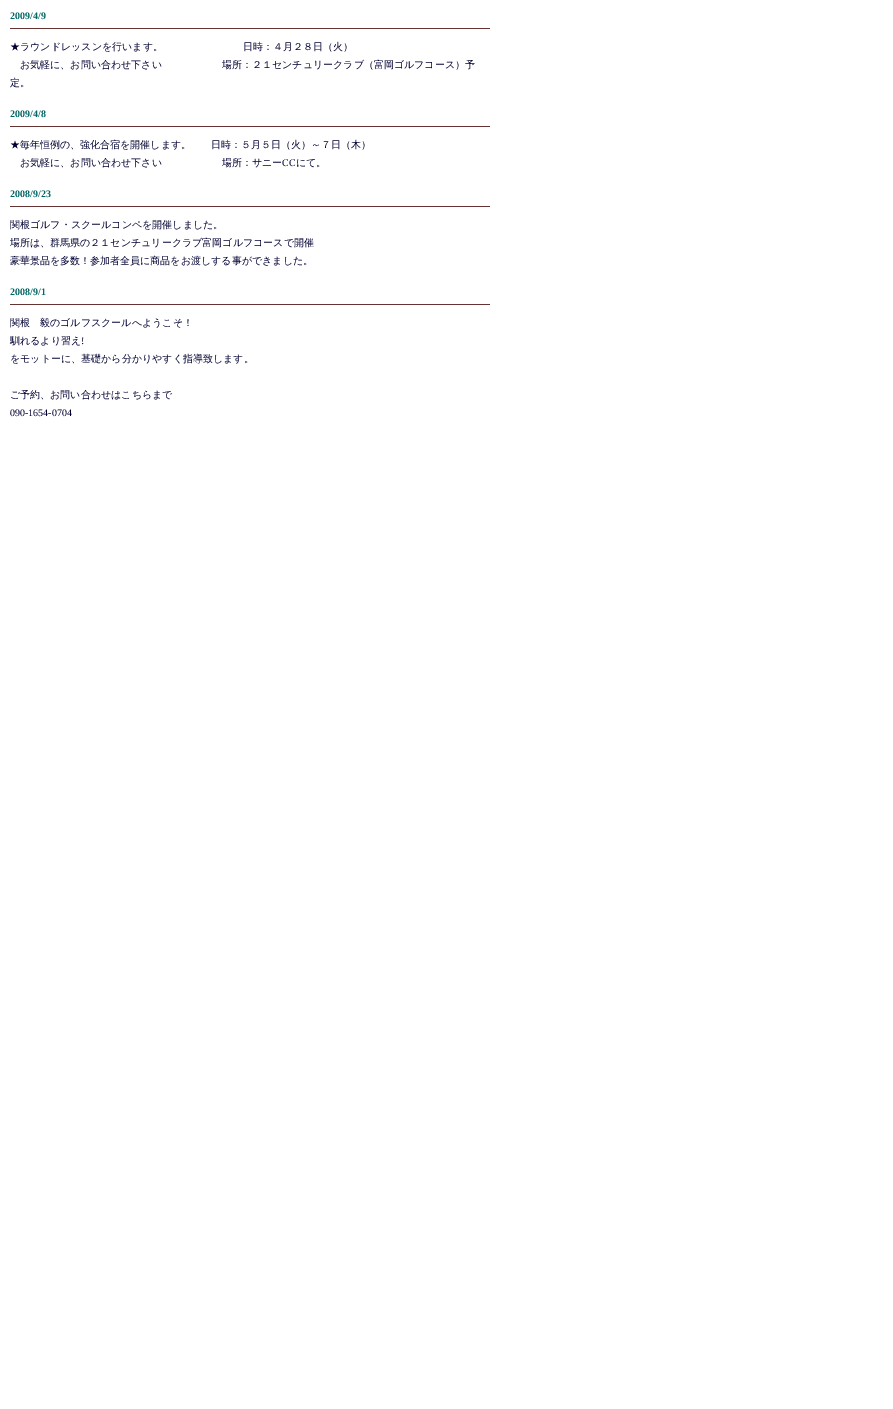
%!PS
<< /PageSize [893 1409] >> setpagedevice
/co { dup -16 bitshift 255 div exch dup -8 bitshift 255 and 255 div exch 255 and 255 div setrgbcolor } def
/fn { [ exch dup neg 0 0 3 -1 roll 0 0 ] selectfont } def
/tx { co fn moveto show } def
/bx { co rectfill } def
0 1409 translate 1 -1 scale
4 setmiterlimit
0 0 893 1409 16#FFFFFF bx
10 28 480 1 16#663333 bx
10 126 480 1 16#663333 bx
10 206 480 1 16#663333 bx
10 304 480 1 16#663333 bx
(2009/4/9) 10 19 /LiberationSerif-Bold 10 16#006666 tx
(★ラウンドレッスンを行います。　　　　　　　　日時：４月２８日（火）) 10 50 /WenQuanYiZenHei-Medium 10 16#000033 tx
(お気軽に、お問い合わせ下さい　　　　　　場所：２１センチュリークラブ（富岡ゴルフコース）予) 20 68 /WenQuanYiZenHei-Medium 10 16#000033 tx
(定。) 10 86 /WenQuanYiZenHei-Medium 10 16#000033 tx
(2009/4/8) 10 117 /LiberationSerif-Bold 10 16#006666 tx
(★毎年恒例の、強化合宿を開催します。　　日時：５月５日（火）～７日（木）) 10 148 /WenQuanYiZenHei-Medium 10 16#000033 tx
(お気軽に、お問い合わせ下さい　　　　　　場所：サニー) 20 166 /WenQuanYiZenHei-Medium 10 16#000033 tx
(CC) 282 166 /LiberationSerif-Regular 10 16#000033 tx
(にて。) 296 166 /WenQuanYiZenHei-Medium 10 16#000033 tx
(2008/9/23) 10 197 /LiberationSerif-Bold 10 16#006666 tx
(関根ゴルフ・スクールコンペを開催しました。) 10 228 /WenQuanYiZenHei-Medium 10 16#000033 tx
(場所は、群馬県の２１センチュリークラブ富岡ゴルフコースで開催) 10 246 /WenQuanYiZenHei-Medium 10 16#000033 tx
(豪華景品を多数！参加者全員に商品をお渡しする事ができました。) 10 264 /WenQuanYiZenHei-Medium 10 16#000033 tx
(2008/9/1) 10 295 /LiberationSerif-Bold 10 16#006666 tx
(関根　毅のゴルフスクールへようこそ！) 10 326 /WenQuanYiZenHei-Medium 10 16#000033 tx
(馴れるより習え) 10 344 /WenQuanYiZenHei-Medium 10 16#000033 tx
(!) 81 344 /LiberationSerif-Regular 10 16#000033 tx
(をモットーに、基礎から分かりやすく指導致します。) 10 362 /WenQuanYiZenHei-Medium 10 16#000033 tx
(ご予約、お問い合わせはこちらまで) 10 398 /WenQuanYiZenHei-Medium 10 16#000033 tx
(090-1654-0704) 10 416 /LiberationSerif-Regular 10 16#000033 tx
showpage
